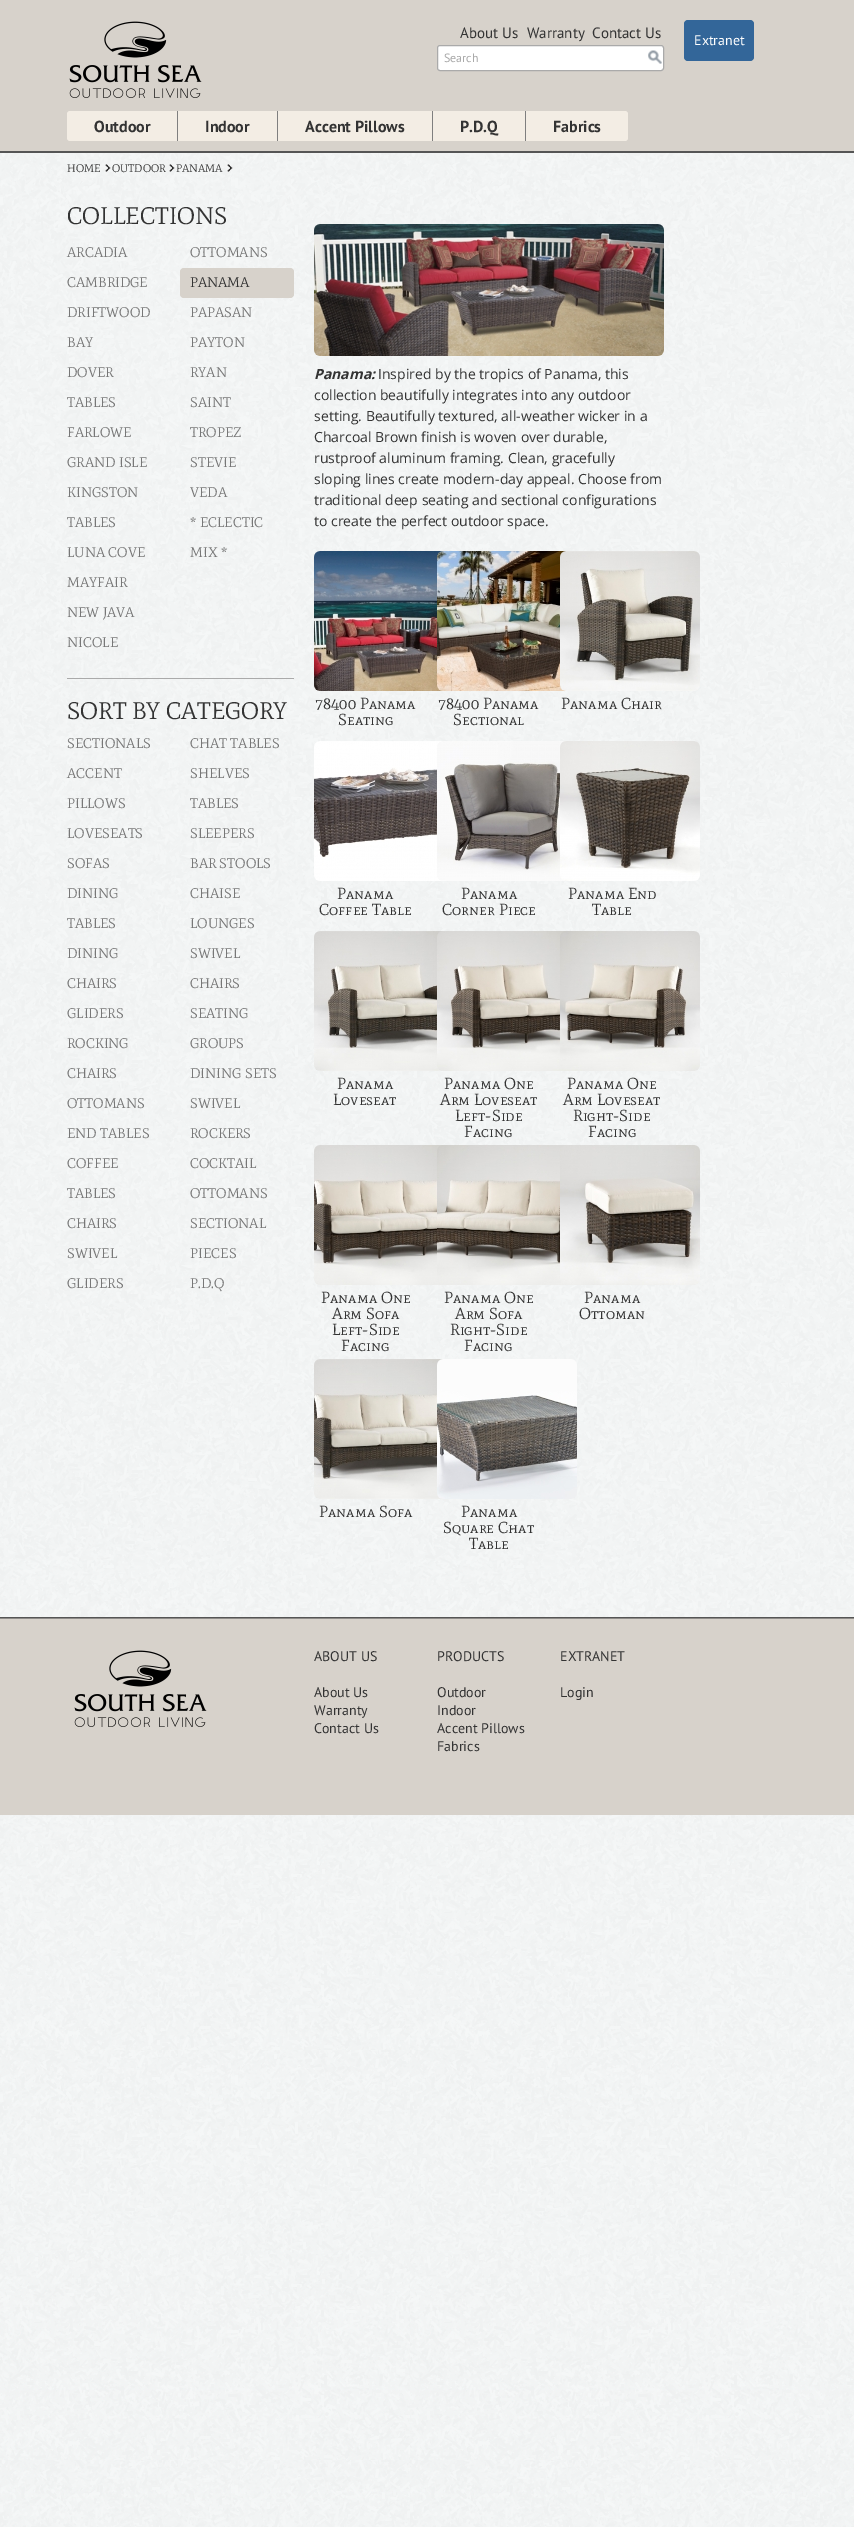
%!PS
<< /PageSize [854 2527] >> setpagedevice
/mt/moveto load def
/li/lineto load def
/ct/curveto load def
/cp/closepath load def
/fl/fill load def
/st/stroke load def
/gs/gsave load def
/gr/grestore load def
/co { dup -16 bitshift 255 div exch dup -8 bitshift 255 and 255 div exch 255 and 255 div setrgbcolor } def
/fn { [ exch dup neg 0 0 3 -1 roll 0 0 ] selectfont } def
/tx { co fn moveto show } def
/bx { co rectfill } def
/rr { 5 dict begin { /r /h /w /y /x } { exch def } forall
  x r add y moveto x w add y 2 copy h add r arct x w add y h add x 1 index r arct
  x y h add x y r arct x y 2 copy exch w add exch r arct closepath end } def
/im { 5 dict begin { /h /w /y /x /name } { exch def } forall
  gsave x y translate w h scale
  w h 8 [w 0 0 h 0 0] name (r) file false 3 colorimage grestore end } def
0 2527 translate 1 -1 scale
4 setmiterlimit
0 0 854 2527 16#FFFFFF bx
(media/1.raw) 0 1815 854 712 im
0 0 854 151 16#D7D2CB bx
0 151 854 2 16#555555 bx
(media/2.raw) 69 21 133 77 im
16#FFFFFF co
437.5 45.5 226 25 2.5 rr gs fl gr
16#AAAAAA co
st
(media/3.raw) 648 50 14 14 im
16#336699 co
684 20 70 41 4 rr fl
16#F3EDE4 co
70 111 mt 178 111 li 178 141 li 70 141 li 68.5 141 67 139.5 67 138 ct 67 114 li 67 112.5 68.5 111 70 111 ct cp fl
177 111 1 30 16#7F7F7F bx
178 111 99 30 16#F3EDE4 bx
277 111 1 30 16#7F7F7F bx
278 111 154 30 16#F3EDE4 bx
432 111 1 30 16#7F7F7F bx
433 111 92 30 16#F3EDE4 bx
525 111 1 30 16#7F7F7F bx
16#F3EDE4 co
526 111 mt 625 111 li 626.5 111 628 112.5 628 114 ct 628 138 li 628 139.5 626.5 141 625 141 ct 526 141 li cp fl
(media/4.raw) 0 153 854 1464 im
(media/5.raw) 105 164 6 8 im
(media/6.raw) 169 164 6 8 im
(media/7.raw) 227 164 6 8 im
16#D7D2CB co
180 268 114 30 4 rr fl
67 678 227 1 16#AAAAAA bx
(media/8.raw) 314 224 350 132 im
(media/9.raw) 314 551 129 140 im
(media/10.raw) 437 551 129 140 im
(media/11.raw) 560 551 140 140 im
(media/12.raw) 314 741 129 140 im
(media/13.raw) 437 741 129 140 im
(media/14.raw) 560 741 140 140 im
(media/15.raw) 314 931 129 140 im
(media/16.raw) 437 931 129 140 im
(media/17.raw) 560 931 140 140 im
(media/18.raw) 314 1145 129 140 im
(media/19.raw) 437 1145 129 140 im
(media/20.raw) 560 1145 140 140 im
(media/21.raw) 314 1359 129 140 im
(media/22.raw) 437 1359 140 140 im
0 1619 854 196 16#D7D2CB bx
0 1617 854 1 16#555555 bx
0 1618 854 1 16#8E8B88 bx
(media/2.raw) 74 1650 133 77 im
(About Us) 460 38 /PTSans-Regular 15 16#333333 tx
(Warranty) 527 38 /PTSans-Regular 15 16#333333 tx
(Contact Us) 592 38 /PTSans-Regular 15 16#333333 tx
(Search) 444 62 /PTSans-Regular 12 16#AAAAAA tx
(Extranet) 694 45 /PTSans-Regular 14 16#FFFFFF tx
(Outdoor) 94 132 /PTSans-Bold 16 16#333333 tx
(Indoor) 205 132 /PTSans-Bold 16 16#333333 tx
(Accent Pillows) 305 132 /PTSans-Bold 16 16#333333 tx
(P.D.Q) 460 132 /PTSans-Bold 16 16#333333 tx
(Fabrics) 553 132 /PTSans-Bold 16 16#333333 tx
(HOME) 67 172 /MateSC-Regular 11 16#333333 tx
(OUTDOOR) 112 172 /MateSC-Regular 11 16#333333 tx
(PANAMA) 176 172 /MateSC-Regular 11 16#333333 tx
(COLLECTIONS) 67 224 /MateSC-Regular 24 16#333333 tx
(ARCADIA) 67 257 /MateSC-Regular 14 16#777777 tx
(CAMBRIDGE) 67 287 /MateSC-Regular 14 16#777777 tx
(DRIFTWOOD) 67 317 /MateSC-Regular 14 16#777777 tx
(BAY) 67 347 /MateSC-Regular 14 16#777777 tx
(DOVER) 67 377 /MateSC-Regular 14 16#777777 tx
(TABLES) 67 407 /MateSC-Regular 14 16#777777 tx
(FARLOWE) 67 437 /MateSC-Regular 14 16#777777 tx
(GRAND ISLE) 67 467 /MateSC-Regular 14 16#777777 tx
(KINGSTON) 67 497 /MateSC-Regular 14 16#777777 tx
(TABLES) 67 527 /MateSC-Regular 14 16#777777 tx
(LUNA COVE) 67 557 /MateSC-Regular 14 16#777777 tx
(MAYFAIR) 67 587 /MateSC-Regular 14 16#777777 tx
(NEW JAVA) 67 617 /MateSC-Regular 14 16#777777 tx
(NICOLE) 67 647 /MateSC-Regular 14 16#777777 tx
(OTTOMANS) 190 257 /MateSC-Regular 14 16#777777 tx
(PANAMA) 190 287 /MateSC-Regular 14 16#333333 tx
(PAPASAN) 190 317 /MateSC-Regular 14 16#777777 tx
(PAYTON) 190 347 /MateSC-Regular 14 16#777777 tx
(RYAN) 190 377 /MateSC-Regular 14 16#777777 tx
(SAINT) 190 407 /MateSC-Regular 14 16#777777 tx
(TROPEZ) 190 437 /MateSC-Regular 14 16#777777 tx
(STEVIE) 190 467 /MateSC-Regular 14 16#777777 tx
(VEDA) 190 497 /MateSC-Regular 14 16#777777 tx
(* ECLECTIC) 190 527 /MateSC-Regular 14 16#777777 tx
(MIX *) 190 557 /MateSC-Regular 14 16#777777 tx
(SORT BY CATEGORY) 67 719 /MateSC-Regular 24 16#333333 tx
(SECTIONALS) 67 748 /MateSC-Regular 14 16#777777 tx
(ACCENT) 67 778 /MateSC-Regular 14 16#777777 tx
(PILLOWS) 67 808 /MateSC-Regular 14 16#777777 tx
(LOVESEATS) 67 838 /MateSC-Regular 14 16#777777 tx
(SOFAS) 67 868 /MateSC-Regular 14 16#777777 tx
(DINING) 67 898 /MateSC-Regular 14 16#777777 tx
(TABLES) 67 928 /MateSC-Regular 14 16#777777 tx
(DINING) 67 958 /MateSC-Regular 14 16#777777 tx
(CHAIRS) 67 988 /MateSC-Regular 14 16#777777 tx
(GLIDERS) 67 1018 /MateSC-Regular 14 16#777777 tx
(ROCKING) 67 1048 /MateSC-Regular 14 16#777777 tx
(CHAIRS) 67 1078 /MateSC-Regular 14 16#777777 tx
(OTTOMANS) 67 1108 /MateSC-Regular 14 16#777777 tx
(END TABLES) 67 1138 /MateSC-Regular 14 16#777777 tx
(COFFEE) 67 1168 /MateSC-Regular 14 16#777777 tx
(TABLES) 67 1198 /MateSC-Regular 14 16#777777 tx
(CHAIRS) 67 1228 /MateSC-Regular 14 16#777777 tx
(SWIVEL) 67 1258 /MateSC-Regular 14 16#777777 tx
(GLIDERS) 67 1288 /MateSC-Regular 14 16#777777 tx
(CHAT TABLES) 190 748 /MateSC-Regular 14 16#777777 tx
(SHELVES) 190 778 /MateSC-Regular 14 16#777777 tx
(TABLES) 190 808 /MateSC-Regular 14 16#777777 tx
(SLEEPERS) 190 838 /MateSC-Regular 14 16#777777 tx
(BAR STOOLS) 190 868 /MateSC-Regular 14 16#777777 tx
(CHAISE) 190 898 /MateSC-Regular 14 16#777777 tx
(LOUNGES) 190 928 /MateSC-Regular 14 16#777777 tx
(SWIVEL) 190 958 /MateSC-Regular 14 16#777777 tx
(CHAIRS) 190 988 /MateSC-Regular 14 16#777777 tx
(SEATING) 190 1018 /MateSC-Regular 14 16#777777 tx
(GROUPS) 190 1048 /MateSC-Regular 14 16#777777 tx
(DINING SETS) 190 1078 /MateSC-Regular 14 16#777777 tx
(SWIVEL) 190 1108 /MateSC-Regular 14 16#777777 tx
(ROCKERS) 190 1138 /MateSC-Regular 14 16#777777 tx
(COCKTAIL) 190 1168 /MateSC-Regular 14 16#777777 tx
(OTTOMANS) 190 1198 /MateSC-Regular 14 16#777777 tx
(SECTIONAL) 190 1228 /MateSC-Regular 14 16#777777 tx
(PIECES) 190 1258 /MateSC-Regular 14 16#777777 tx
(P.D.Q) 190 1288 /MateSC-Regular 14 16#777777 tx
(Panama:) 314 379 /OpenSans-BoldItalic 14 16#333333 tx
(Inspired by the tropics of Panama, this) 378 379 /OpenSans-Regular 14 16#333333 tx
(collection beautifully integrates into any outdoor) 314 400 /OpenSans-Regular 14 16#333333 tx
(setting. Beautifully textured, all-weather wicker in a) 314 421 /OpenSans-Regular 14 16#333333 tx
(Charcoal Brown finish is woven over durable,) 314 442 /OpenSans-Regular 14 16#333333 tx
(rustproof aluminum framing. Clean, gracefully) 314 463 /OpenSans-Regular 14 16#333333 tx
(sloping lines create modern-day appeal. Choose from) 314 484 /OpenSans-Regular 14 16#333333 tx
(traditional deep seating and sectional configurations) 314 505 /OpenSans-Regular 14 16#333333 tx
(to create the perfect outdoor space.) 314 526 /OpenSans-Regular 14 16#333333 tx
(78400 Panama) 315 709 /MateSC-Regular 16 16#333333 tx
(Seating) 338 725 /MateSC-Regular 16 16#333333 tx
(78400 Panama) 438 709 /MateSC-Regular 16 16#333333 tx
(Sectional) 453 725 /MateSC-Regular 16 16#333333 tx
(Panama Chair) 561 709 /MateSC-Regular 16 16#333333 tx
(Panama) 337 899 /MateSC-Regular 16 16#333333 tx
(Coffee Table) 319 915 /MateSC-Regular 16 16#333333 tx
(Panama) 461 899 /MateSC-Regular 16 16#333333 tx
(Corner Piece) 442 915 /MateSC-Regular 16 16#333333 tx
(Panama End) 568 899 /MateSC-Regular 16 16#333333 tx
(Table) 592 915 /MateSC-Regular 16 16#333333 tx
(Panama) 337 1089 /MateSC-Regular 16 16#333333 tx
(Loveseat) 333 1105 /MateSC-Regular 16 16#333333 tx
(Panama One) 444 1089 /MateSC-Regular 16 16#333333 tx
(Arm Loveseat) 440 1105 /MateSC-Regular 16 16#333333 tx
(Left-Side) 455 1121 /MateSC-Regular 16 16#333333 tx
(Facing) 464 1137 /MateSC-Regular 16 16#333333 tx
(Panama One) 567 1089 /MateSC-Regular 16 16#333333 tx
(Arm Loveseat) 563 1105 /MateSC-Regular 16 16#333333 tx
(Right-Side) 573 1121 /MateSC-Regular 16 16#333333 tx
(Facing) 588 1137 /MateSC-Regular 16 16#333333 tx
(Panama One) 321 1303 /MateSC-Regular 16 16#333333 tx
(Arm Sofa) 332 1319 /MateSC-Regular 16 16#333333 tx
(Left-Side) 332 1335 /MateSC-Regular 16 16#333333 tx
(Facing) 341 1351 /MateSC-Regular 16 16#333333 tx
(Panama One) 444 1303 /MateSC-Regular 16 16#333333 tx
(Arm Sofa) 455 1319 /MateSC-Regular 16 16#333333 tx
(Right-Side) 450 1335 /MateSC-Regular 16 16#333333 tx
(Facing) 464 1351 /MateSC-Regular 16 16#333333 tx
(Panama) 584 1303 /MateSC-Regular 16 16#333333 tx
(Ottoman) 579 1319 /MateSC-Regular 16 16#333333 tx
(Panama Sofa) 319 1517 /MateSC-Regular 16 16#333333 tx
(Panama) 461 1517 /MateSC-Regular 16 16#333333 tx
(Square Chat) 443 1533 /MateSC-Regular 16 16#333333 tx
(Table) 469 1549 /MateSC-Regular 16 16#333333 tx
(ABOUT US) 314 1661 /PTSans-Regular 14 16#333333 tx
(About Us) 314 1697 /PTSans-Regular 14 16#333333 tx
(Warranty) 314 1715 /PTSans-Regular 14 16#333333 tx
(Contact Us) 314 1733 /PTSans-Regular 14 16#333333 tx
(PRODUCTS) 437 1661 /PTSans-Regular 14 16#333333 tx
(Outdoor) 437 1697 /PTSans-Regular 14 16#333333 tx
(Indoor) 437 1715 /PTSans-Regular 14 16#333333 tx
(Accent Pillows) 437 1733 /PTSans-Regular 14 16#333333 tx
(Fabrics) 437 1751 /PTSans-Regular 14 16#333333 tx
(EXTRANET) 560 1661 /PTSans-Regular 14 16#333333 tx
(Login) 560 1697 /PTSans-Regular 14 16#333333 tx
showpage
